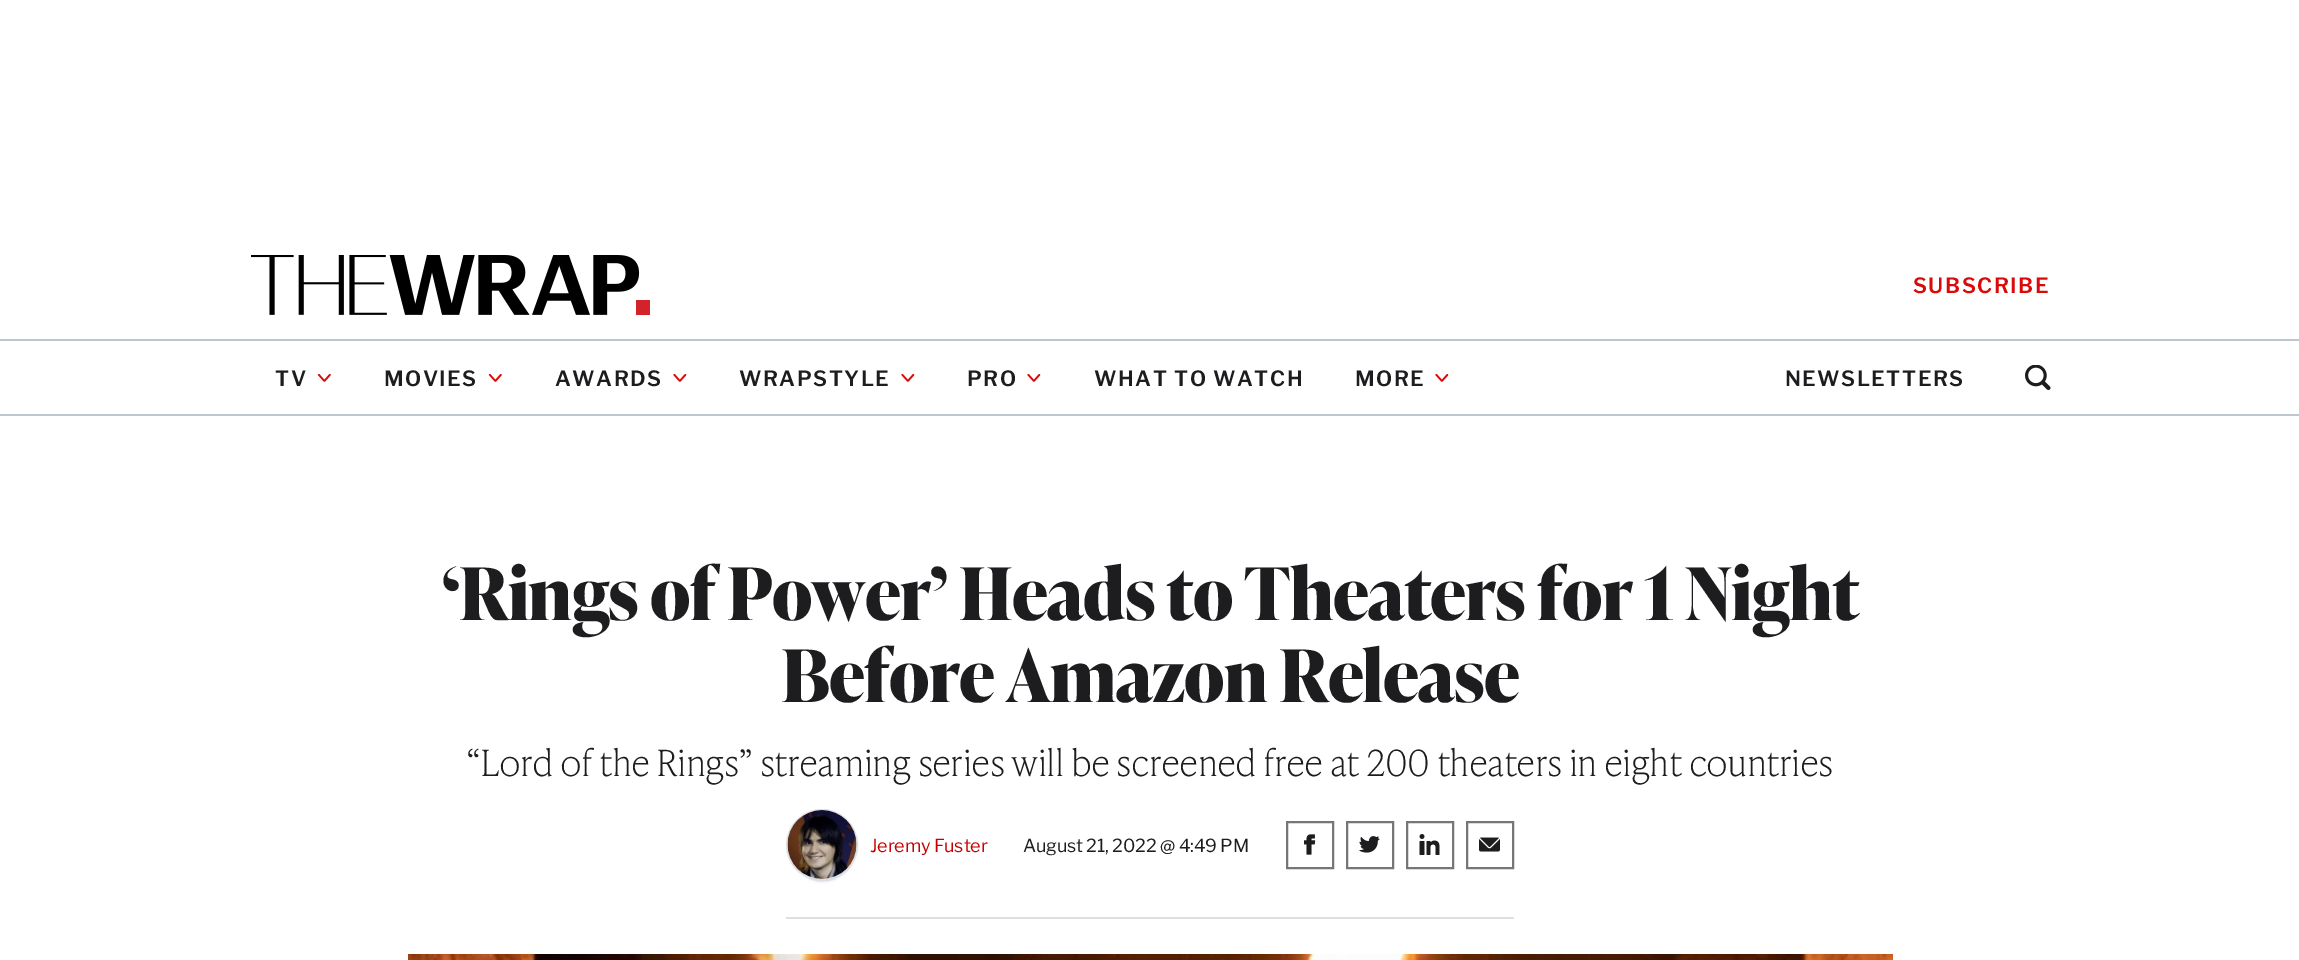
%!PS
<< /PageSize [2299 960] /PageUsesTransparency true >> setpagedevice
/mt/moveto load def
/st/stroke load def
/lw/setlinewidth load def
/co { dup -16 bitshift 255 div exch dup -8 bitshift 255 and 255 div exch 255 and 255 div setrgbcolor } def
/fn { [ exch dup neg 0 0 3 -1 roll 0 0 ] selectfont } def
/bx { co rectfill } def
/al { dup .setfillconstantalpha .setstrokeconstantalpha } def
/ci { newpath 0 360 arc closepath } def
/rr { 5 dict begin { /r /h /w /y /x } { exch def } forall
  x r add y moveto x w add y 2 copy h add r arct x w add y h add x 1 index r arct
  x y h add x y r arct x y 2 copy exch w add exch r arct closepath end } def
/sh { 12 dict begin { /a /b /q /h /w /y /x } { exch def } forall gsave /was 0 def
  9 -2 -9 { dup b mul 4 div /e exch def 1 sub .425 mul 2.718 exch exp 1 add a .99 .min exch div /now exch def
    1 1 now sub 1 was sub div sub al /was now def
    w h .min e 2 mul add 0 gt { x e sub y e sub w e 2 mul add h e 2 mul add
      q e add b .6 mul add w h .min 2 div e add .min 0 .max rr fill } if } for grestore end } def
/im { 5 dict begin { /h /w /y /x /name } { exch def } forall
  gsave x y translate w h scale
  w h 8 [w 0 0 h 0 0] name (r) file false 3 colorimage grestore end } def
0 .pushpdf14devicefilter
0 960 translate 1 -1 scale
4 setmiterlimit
0 0 2299 960 16#FFFFFF bx
0 339 2299 2 16#BDC6CE bx
(media/1.raw) 251 255 399 60 im
0 414 2299 2 16#BDC6CE bx
(media/2.raw) 317 374 14 8 im
(media/2.raw) 488 374 14 8 im
(media/3.raw) 673 374 14 8 im
(media/3.raw) 901 374 14 8 im
(media/3.raw) 1027 374 14 8 im
(media/3.raw) 1435 374 14 8 im
(media/4.raw) 2025 365 26 25 im
786 917 728 2 16#DCDFE4 bx
16#18274B co
788 812 69 70 34.5 1 .08 sh
788 810 69 71 34.5 .5 .12 sh
16#DCDFE4 co
2 lw
822 845 35 ci st
(media/5.raw) 787 810 70 69 im
16#767676 co
1287 822 46 46 rectstroke
(media/6.raw) 1304 834 12 21 im
1347 822 46 46 rectstroke
(media/7.raw) 1359 836 21 17 im
1407 822 46 46 rectstroke
(media/8.raw) 1419 834 21 21 im
1467 822 46 46 rectstroke
(media/9.raw) 1479 837 21 15 im
(media/10.raw) 408 954 1485 6 im
/LibreFranklin-SemiBold 21 fn
16#DA0A0A co
1913 293 mt 1.5 0 (SUBSCRIBE) ashow
16#1D1D1F co
275 386 mt 1.5 0 (TV) ashow
384 386 mt 1.5 0 (MOVIES) ashow
555 386 mt 1.5 0 (AWARDS) ashow
739 386 mt 1.5 0 (WRAPSTYLE) ashow
967 386 mt 1.5 0 (PRO) ashow
1094 386 mt 1.5 0 (WHAT TO WATCH) ashow
1355 386 mt 1.5 0 (MORE) ashow
1785 386 mt 1.5 0 (NEWSLETTERS) ashow
/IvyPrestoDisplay-Bold 72 fn
442 620 mt -.75 0 (‘Rings of Power’ Heads to Theaters for 1 Night) ashow
781 702 mt -.75 0 (Before Amazon Release) ashow
/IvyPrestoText-Thin 36 fn
466 776 mt -.75 0 (“Lord of the Rings” streaming series will be screened free at 200 theaters in eight countries) ashow
/LibreFranklin-Regular 18 fn
16#C50000 co
870 852 mt -.2 0 (Jeremy Fuster) ashow
16#1D1D1F co
1023 852 mt -.2 0 (August 21, 2022 @ 4:49 PM) ashow
.poppdf14devicefilter showpage
